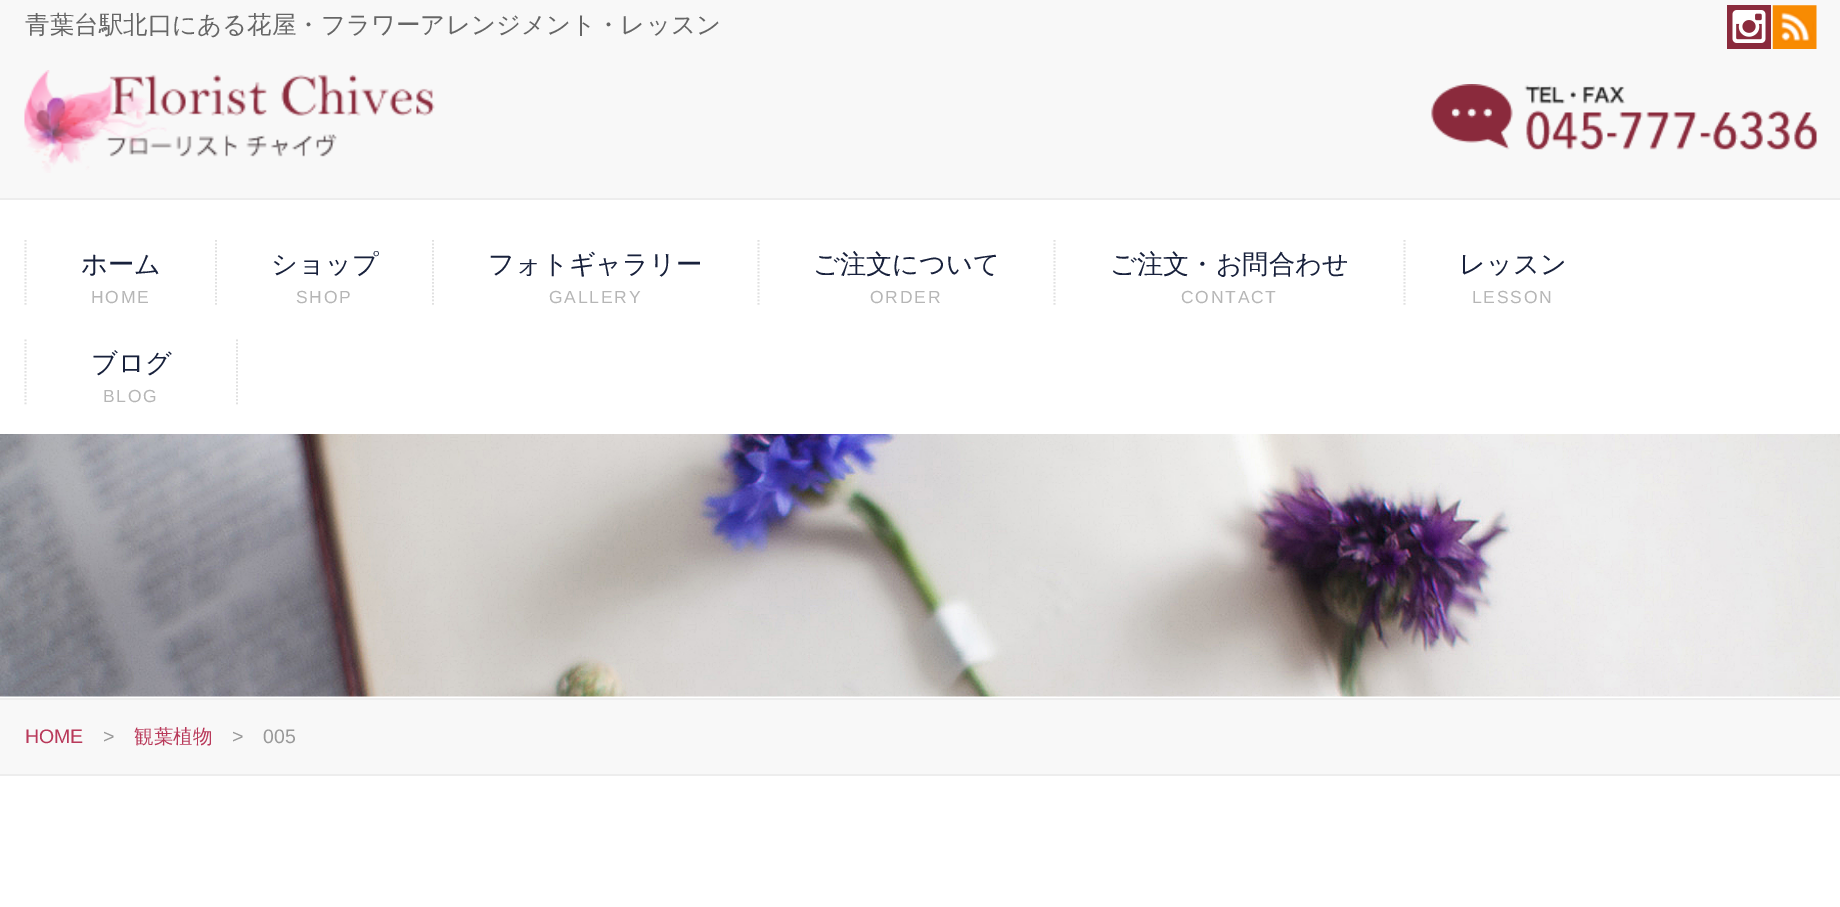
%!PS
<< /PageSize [1840 907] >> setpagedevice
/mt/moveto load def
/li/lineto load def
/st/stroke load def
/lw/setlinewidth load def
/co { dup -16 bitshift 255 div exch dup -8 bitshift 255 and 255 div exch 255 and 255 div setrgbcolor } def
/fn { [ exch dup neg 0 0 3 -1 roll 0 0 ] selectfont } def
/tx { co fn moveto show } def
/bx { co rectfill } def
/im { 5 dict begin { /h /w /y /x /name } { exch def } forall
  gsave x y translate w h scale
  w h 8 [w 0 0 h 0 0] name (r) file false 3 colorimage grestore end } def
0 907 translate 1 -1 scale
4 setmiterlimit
0 0 1840 907 16#FFFFFF bx
0 0 1840 198 16#F8F8F8 bx
0 198 1840 2 16#EDEDED bx
1727 5 44 44 16#8A2A3C bx
(media/1.raw) 1732 10 34 33 im
(media/2.raw) 1772 5 45 44 im
(media/3.raw) 24 70 411 103 im
(media/4.raw) 1431 84 386 66 im
16#E0E0E0 co
1.8 lw
[1.75 1.75] 0 setdash
25.5 240 mt 25.5 306 li st
216 240 mt 216 306 li st
433 240 mt 433 306 li st
758.5 240 mt 758.5 306 li st
1054.5 240 mt 1054.5 306 li st
1404.5 240 mt 1404.5 306 li st
237 339.5 mt 237 406 li st
25.5 339.5 mt 25.5 406 li st
(media/5.raw) 0 434 1840 263 im
0 700 1840 74 16#F8F8F8 bx
0 698 1840 2 16#EDEDED bx
0 774 1840 2 16#EDEDED bx
(青葉台駅北口にある花屋・フラワーアレンジメント・レッスン) 25 33 /WenQuanYiZenHei-Medium 24.5 16#666666 tx
(ホーム) 81 273 /WenQuanYiZenHei-Medium 26.25 16#18213C tx
/LiberationSans-Regular 17.5 fn
16#B6B6B6 co
91 303 mt 1.75 0 (HOME) ashow
(ショップ) 271 273 /WenQuanYiZenHei-Medium 26.25 16#18213C tx
/LiberationSans-Regular 17.5 fn
16#B6B6B6 co
296 303 mt 1.75 0 (SHOP) ashow
(フォトギャラリー) 488 273 /WenQuanYiZenHei-Medium 26.25 16#18213C tx
/LiberationSans-Regular 17.5 fn
16#B6B6B6 co
549 303 mt 1.75 0 (GALLERY) ashow
(ご注文について) 813 273 /WenQuanYiZenHei-Medium 26.25 16#18213C tx
/LiberationSans-Regular 17.5 fn
16#B6B6B6 co
870 303 mt 1.75 0 (ORDER) ashow
(ご注文・お問合わせ) 1110 273 /WenQuanYiZenHei-Medium 26.25 16#18213C tx
/LiberationSans-Regular 17.5 fn
16#B6B6B6 co
1181 303 mt 1.75 0 (CONTACT) ashow
(レッスン) 1459 273 /WenQuanYiZenHei-Medium 26.25 16#18213C tx
/LiberationSans-Regular 17.5 fn
16#B6B6B6 co
1472 303 mt 1.75 0 (LESSON) ashow
(ブログ) 91 372 /WenQuanYiZenHei-Medium 26.25 16#18213C tx
/LiberationSans-Regular 17.5 fn
16#B6B6B6 co
103 402 mt 1.75 0 (BLOG) ashow
(HOME) 25 743 /LiberationSans-Regular 19.5 16#B9395A tx
(>) 103 743 /LiberationSans-Regular 19.5 16#999999 tx
(観葉植物) 134 743 /WenQuanYiZenHei-Medium 19.5 16#B9395A tx
(>) 232 743 /LiberationSans-Regular 19.5 16#999999 tx
(005) 263 743 /LiberationSans-Regular 19.5 16#999999 tx
showpage
